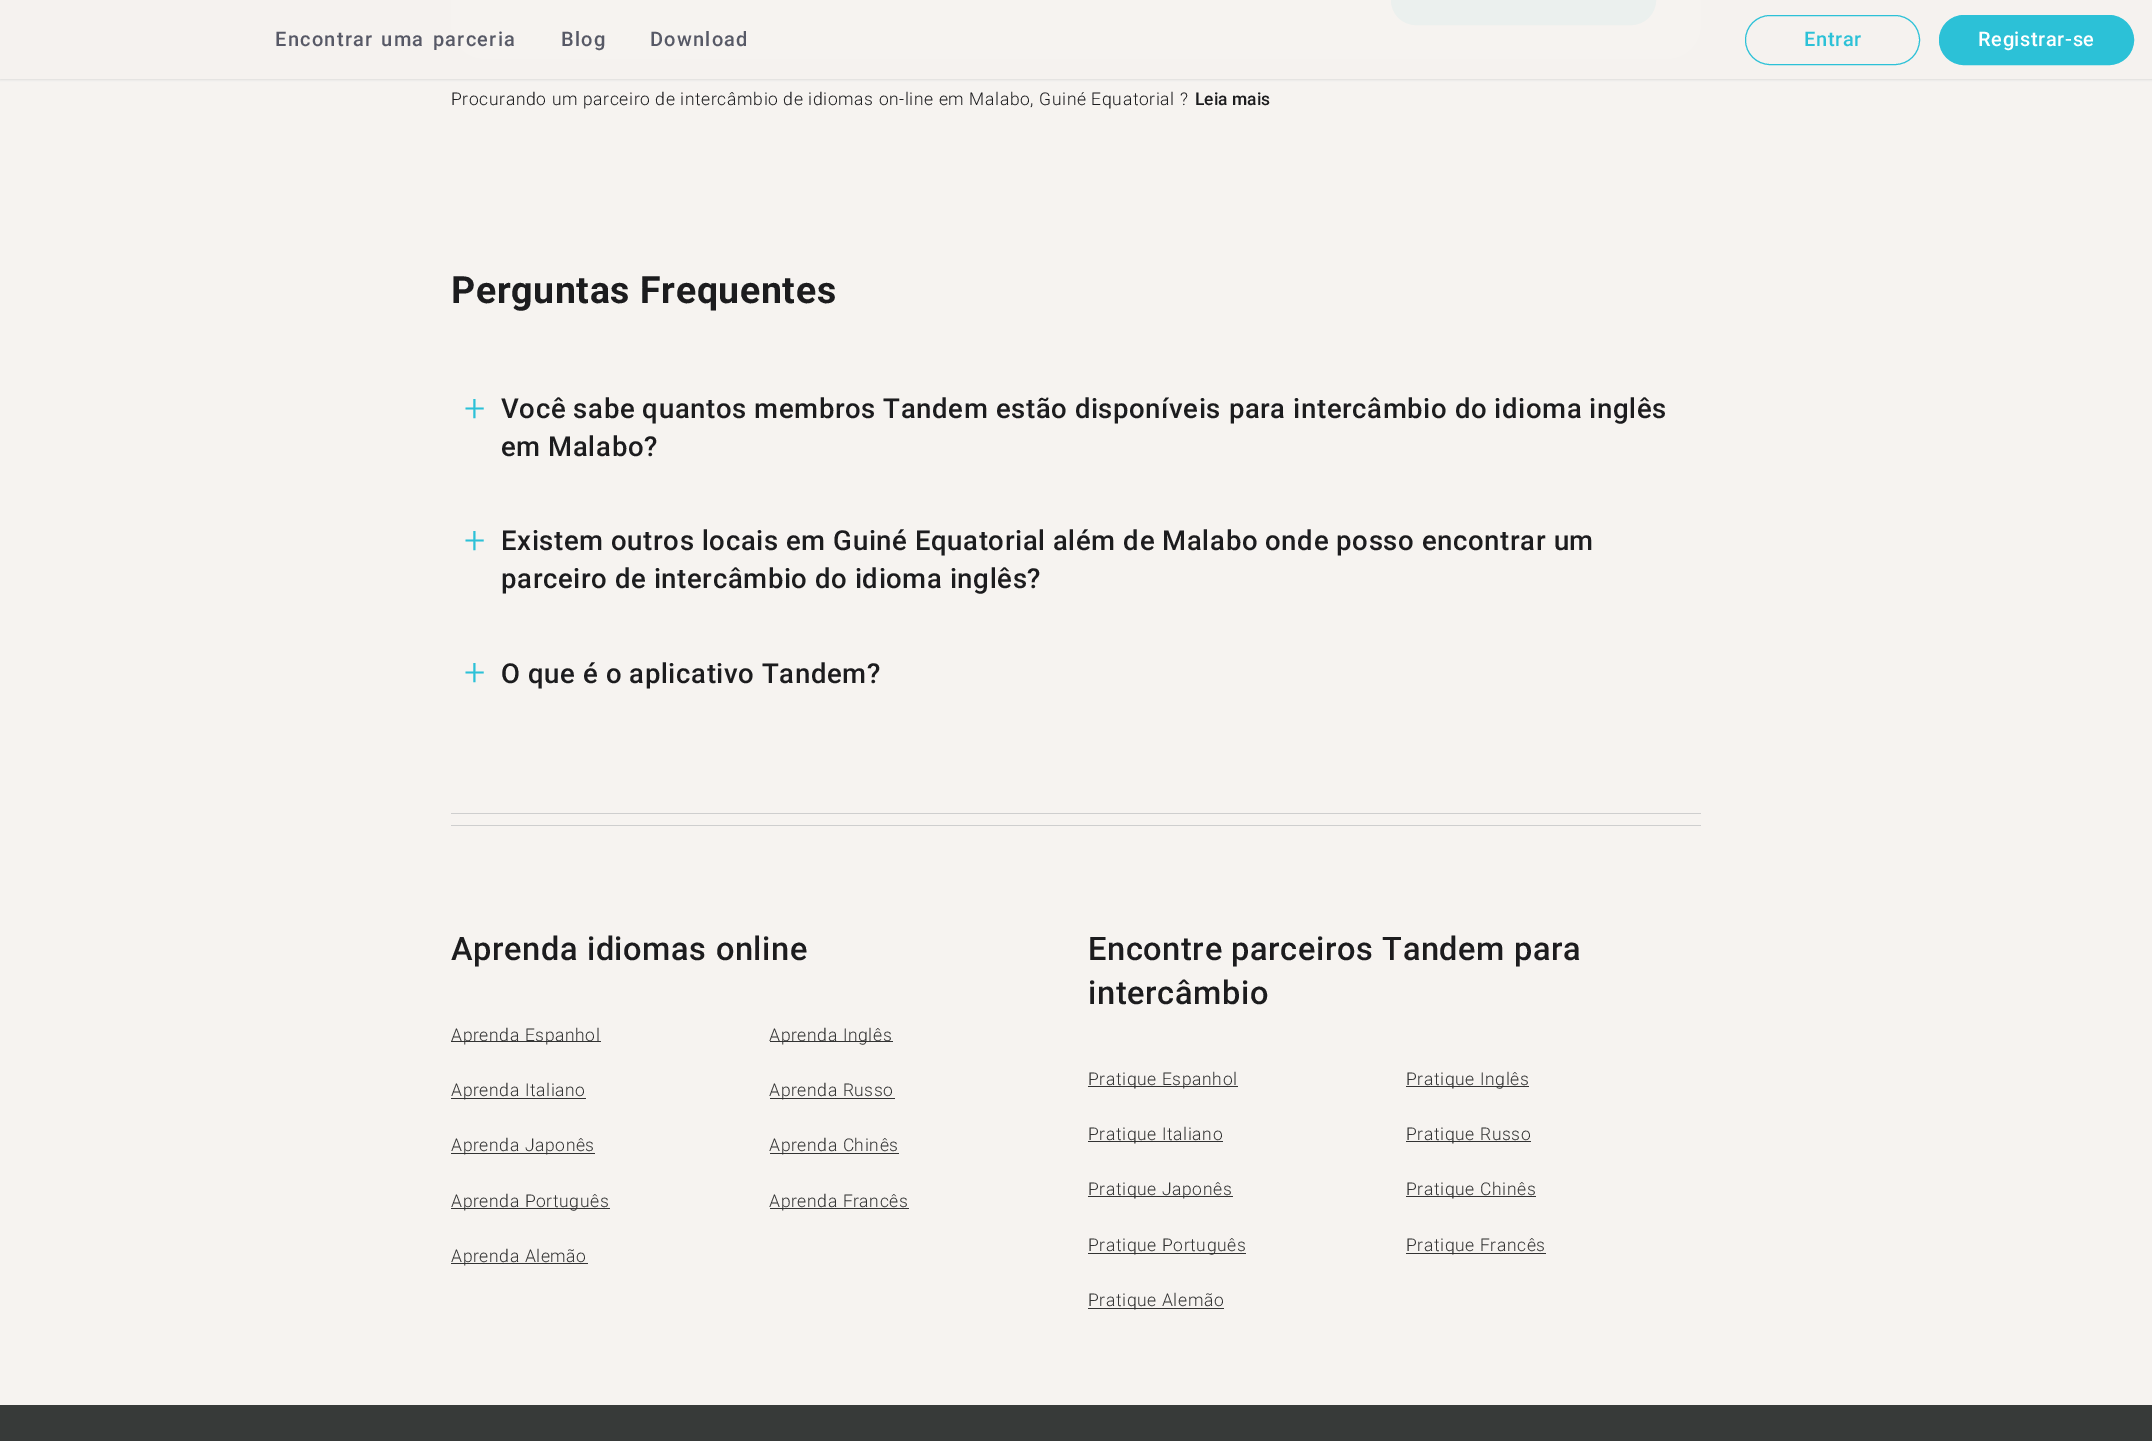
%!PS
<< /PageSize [2152 1441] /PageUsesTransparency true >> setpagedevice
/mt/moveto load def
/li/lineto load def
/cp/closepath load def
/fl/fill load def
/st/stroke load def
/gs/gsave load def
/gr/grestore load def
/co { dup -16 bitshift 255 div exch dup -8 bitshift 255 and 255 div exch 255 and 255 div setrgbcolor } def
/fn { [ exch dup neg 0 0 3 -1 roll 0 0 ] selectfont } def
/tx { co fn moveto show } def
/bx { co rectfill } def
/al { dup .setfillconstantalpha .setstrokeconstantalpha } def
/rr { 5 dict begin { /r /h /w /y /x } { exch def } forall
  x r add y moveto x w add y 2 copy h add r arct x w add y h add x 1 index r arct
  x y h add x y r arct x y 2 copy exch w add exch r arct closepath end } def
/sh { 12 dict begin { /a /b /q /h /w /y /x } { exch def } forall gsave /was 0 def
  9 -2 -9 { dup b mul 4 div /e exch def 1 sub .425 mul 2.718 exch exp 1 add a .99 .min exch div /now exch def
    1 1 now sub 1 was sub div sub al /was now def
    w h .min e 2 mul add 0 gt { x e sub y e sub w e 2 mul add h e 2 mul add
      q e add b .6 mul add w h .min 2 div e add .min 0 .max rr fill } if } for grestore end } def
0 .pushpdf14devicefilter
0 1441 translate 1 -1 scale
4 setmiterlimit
0 0 2152 1441 16#F6F3F0 bx
16#FFFFFF co
451 -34 1250 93 34 rr fl
16#2CC1D7 co
1391.5 -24.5 264 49 24.5 rr gs fl gr
st
gs
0 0 mt 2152 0 li 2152 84 li 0 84 li cp 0 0 mt 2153 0 li 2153 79 li 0 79 li cp eoclip newpath
16#DDDDDD co
0 1 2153 79 0 1 1 sh
gr
0.95 al
0 0 2152 79 16#F5F2EF bx
1 al
16#2CC1D7 co
1745.5 15.5 174 49 24.5 rr st
1939.5 15.5 194 49 24.5 rr gs fl gr
st
451 813 1250 1 16#CECECE bx
451 825 1250 1 16#CECECE bx
451 1041 150 1 16#333333 bx
770 1041 123 1 16#333333 bx
451 1098 135 1 16#333333 bx
770 1098 125 1 16#333333 bx
451 1153 144 1 16#333333 bx
770 1153 129 1 16#333333 bx
451 1208 159 1 16#333333 bx
770 1208 139 1 16#333333 bx
451 1263 137 1 16#333333 bx
1088 1086 150 1 16#333333 bx
1406 1086 123 1 16#333333 bx
1088 1141 135 1 16#333333 bx
1406 1141 125 1 16#333333 bx
1088 1196 145 1 16#333333 bx
1406 1196 130 1 16#333333 bx
1088 1253 158 1 16#333333 bx
1406 1253 140 1 16#333333 bx
1088 1308 136 1 16#333333 bx
0 1405 2152 36 16#373A39 bx
/Roboto-Medium 20 fn
16#575966 co
275 46 mt 2 0 32 1.25 0 (Encontrar uma parceria) awidthshow
561 46 mt 1.25 0 (Blog) ashow
650 46 mt 1.25 0 (Download) ashow
16#2CC1D7 co
1804 46 mt .62 0 (Entrar) ashow
16#FFFFFF co
1978 46 mt .62 0 (Registrar-se) ashow
/Roboto-Light 17.5 fn
16#1C1C1E co
451 105 mt .62 0 (Procurando um parceiro de intercâmbio de idiomas on-line em Malabo, Guiné Equatorial ?) ashow
(Leia mais) 1195 105 /Roboto-Medium 17.5 16#1C1C1E tx
/Roboto-Bold 37.5 fn
451 303 mt .62 0 (Perguntas Frequentes) ashow
/Roboto-Light 37.5 fn
16#2CC1D7 co
464 421 mt .62 0 (+) ashow
/Roboto-Medium 27.5 fn
16#1C1C1E co
501 418 mt .62 0 (Você sabe quantos membros Tandem estão disponíveis para intercâmbio do idioma inglês) ashow
501 456 mt .62 0 (em Malabo?) ashow
/Roboto-Light 37.5 fn
16#2CC1D7 co
464 553 mt .62 0 (+) ashow
/Roboto-Medium 27.5 fn
16#1C1C1E co
501 550 mt .62 0 (Existem outros locais em Guiné Equatorial além de Malabo onde posso encontrar um) ashow
501 588 mt .62 0 (parceiro de intercâmbio do idioma inglês?) ashow
/Roboto-Light 37.5 fn
16#2CC1D7 co
464 685 mt .62 0 (+) ashow
/Roboto-Medium 27.5 fn
16#1C1C1E co
501 683 mt .62 0 (O que é o aplicativo Tandem?) ashow
/Roboto-Medium 32.5 fn
451 960 mt .62 0 (Aprenda idiomas online) ashow
/Roboto-Light 17.5 fn
16#333333 co
451 1041 mt .62 0 (Aprenda Espanhol) ashow
769 1041 mt .62 0 (Aprenda Inglês) ashow
451 1096 mt .62 0 (Aprenda Italiano) ashow
769 1096 mt .62 0 (Aprenda Russo) ashow
451 1151 mt .62 0 (Aprenda Japonês) ashow
769 1151 mt .62 0 (Aprenda Chinês) ashow
451 1207 mt .62 0 (Aprenda Português) ashow
769 1207 mt .62 0 (Aprenda Francês) ashow
451 1262 mt .62 0 (Aprenda Alemão) ashow
/Roboto-Medium 32.5 fn
16#1C1C1E co
1088 960 mt .62 0 (Encontre parceiros Tandem para) ashow
1088 1004 mt .62 0 (intercâmbio) ashow
/Roboto-Light 17.5 fn
16#333333 co
1088 1085 mt .62 0 (Pratique Espanhol) ashow
1406 1085 mt .62 0 (Pratique Inglês) ashow
1088 1140 mt .62 0 (Pratique Italiano) ashow
1406 1140 mt .62 0 (Pratique Russo) ashow
1088 1195 mt .62 0 (Pratique Japonês) ashow
1406 1195 mt .62 0 (Pratique Chinês) ashow
1088 1251 mt .62 0 (Pratique Português) ashow
1406 1251 mt .62 0 (Pratique Francês) ashow
1088 1306 mt .62 0 (Pratique Alemão) ashow
.poppdf14devicefilter showpage
